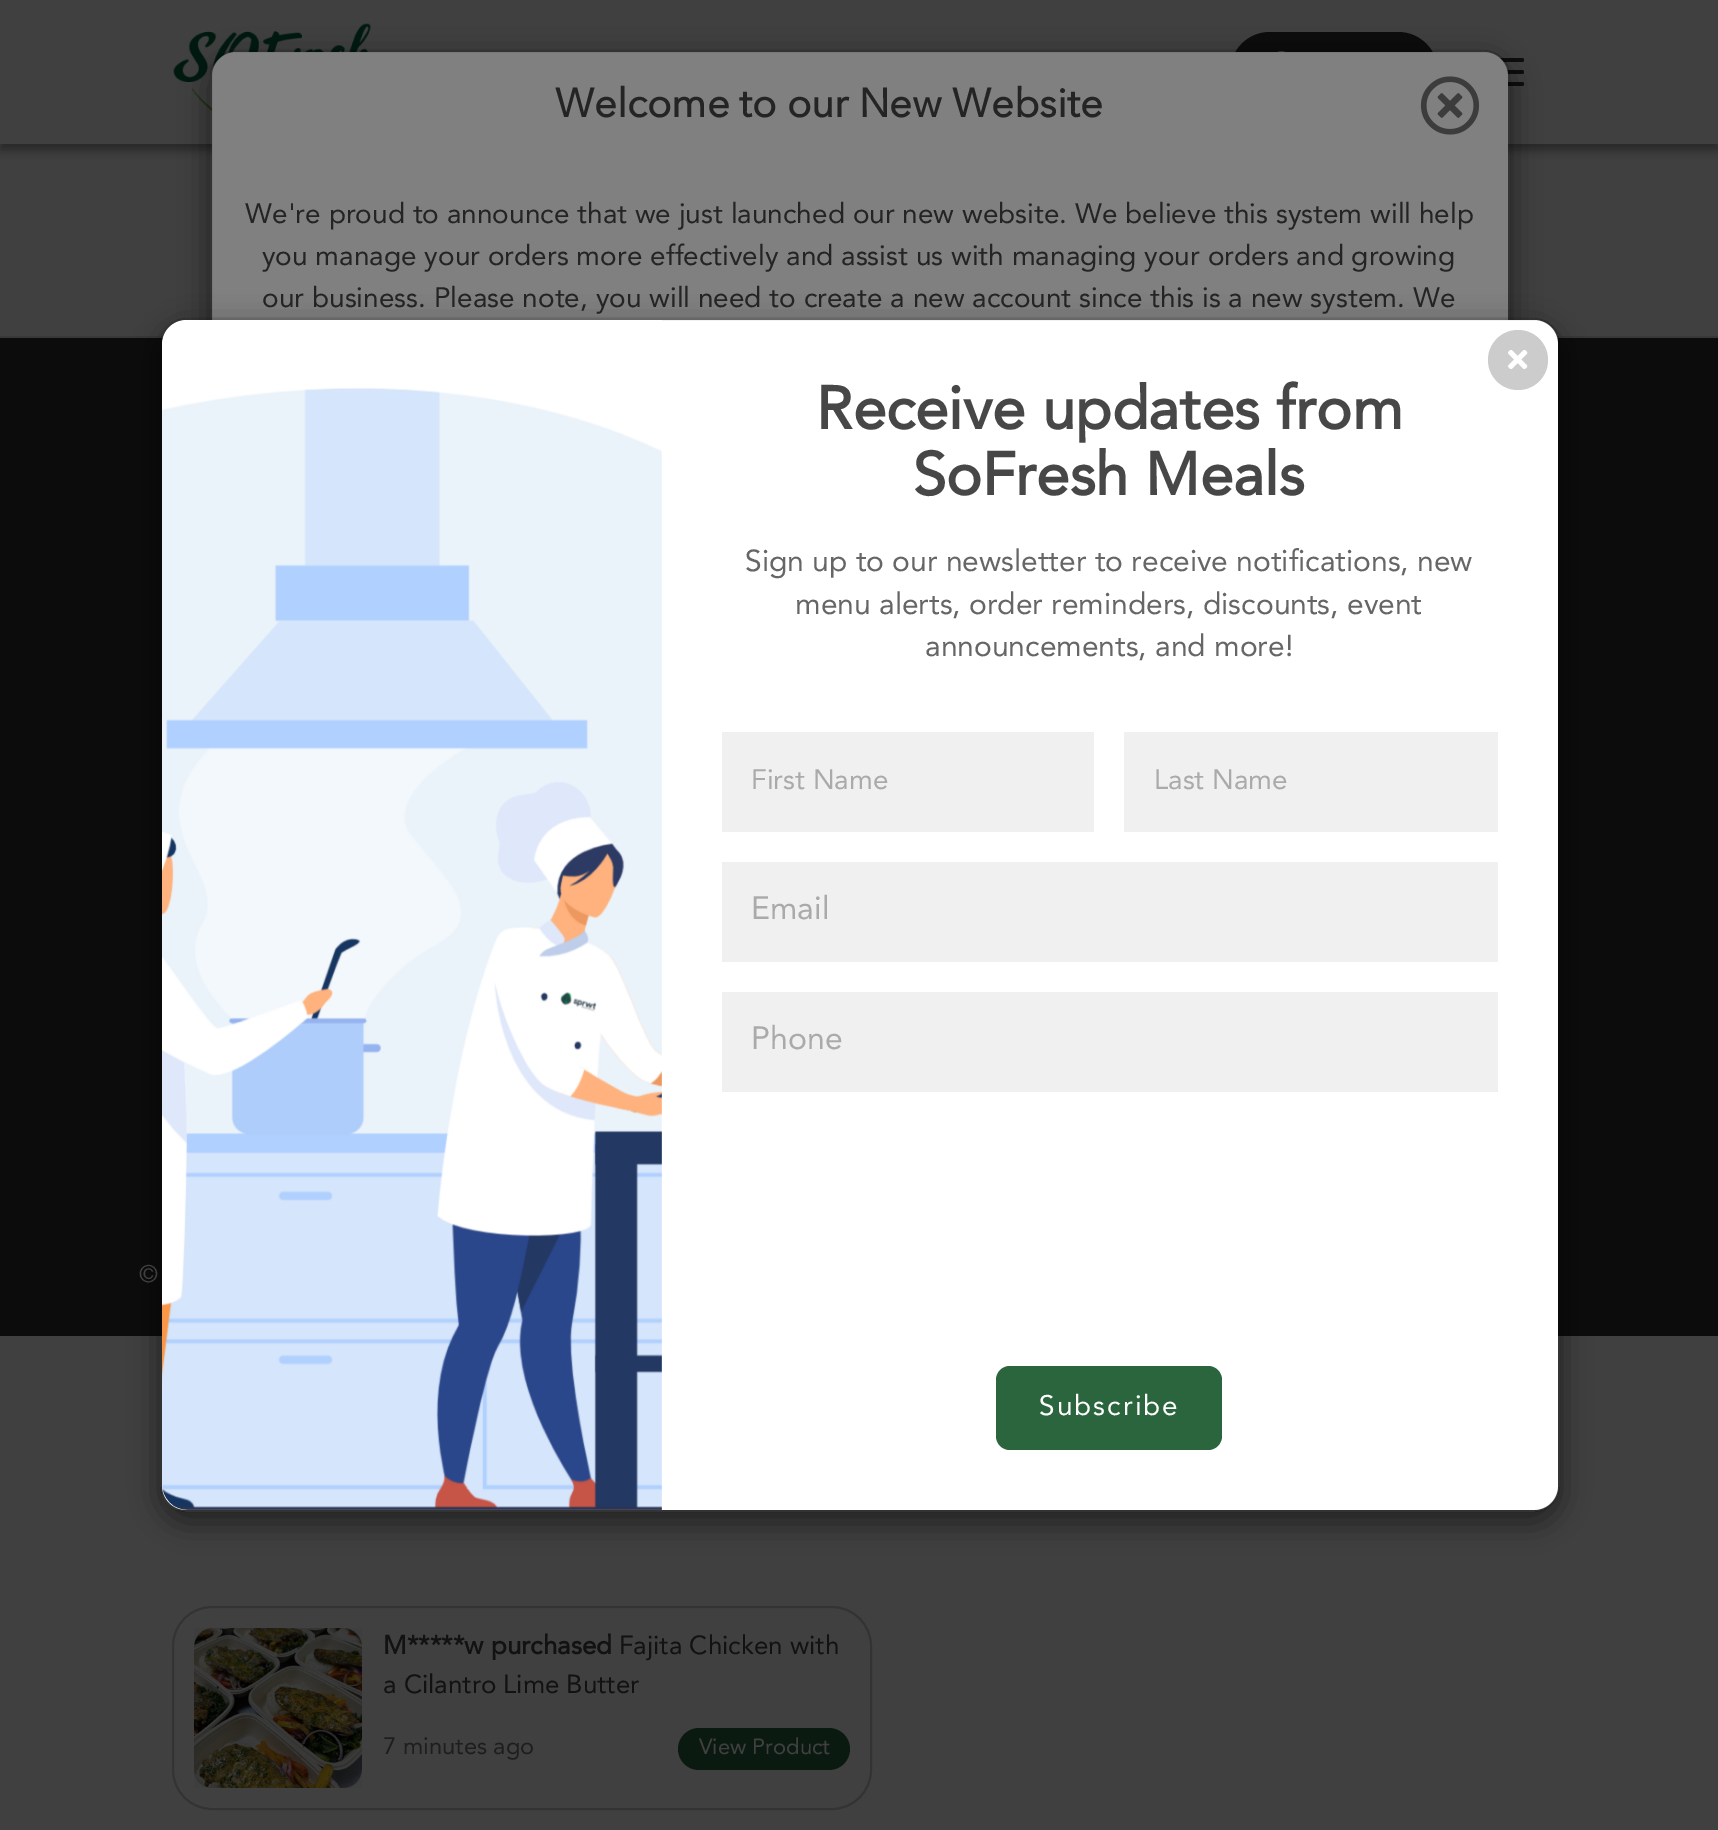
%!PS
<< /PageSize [1718 1830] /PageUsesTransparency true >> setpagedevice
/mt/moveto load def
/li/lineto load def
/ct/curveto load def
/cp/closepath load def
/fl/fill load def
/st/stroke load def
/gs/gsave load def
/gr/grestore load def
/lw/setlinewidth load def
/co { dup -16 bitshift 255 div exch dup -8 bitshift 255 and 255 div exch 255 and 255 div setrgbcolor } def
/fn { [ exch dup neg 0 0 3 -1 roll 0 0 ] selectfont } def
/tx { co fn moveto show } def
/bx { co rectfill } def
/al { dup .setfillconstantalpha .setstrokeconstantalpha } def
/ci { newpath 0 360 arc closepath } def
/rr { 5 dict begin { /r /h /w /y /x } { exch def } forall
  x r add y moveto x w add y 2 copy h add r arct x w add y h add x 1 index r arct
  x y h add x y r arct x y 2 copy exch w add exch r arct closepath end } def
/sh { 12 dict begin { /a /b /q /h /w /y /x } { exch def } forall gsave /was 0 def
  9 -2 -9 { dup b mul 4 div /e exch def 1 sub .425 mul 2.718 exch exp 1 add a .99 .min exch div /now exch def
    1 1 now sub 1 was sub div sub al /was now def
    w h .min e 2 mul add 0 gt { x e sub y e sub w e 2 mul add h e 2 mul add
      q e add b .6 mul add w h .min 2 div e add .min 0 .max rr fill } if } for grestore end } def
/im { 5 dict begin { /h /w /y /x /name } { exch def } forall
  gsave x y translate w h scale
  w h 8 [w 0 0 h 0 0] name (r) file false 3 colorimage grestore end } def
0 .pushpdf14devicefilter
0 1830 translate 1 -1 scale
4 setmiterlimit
0 0 1718 1830 16#404040 bx
gs
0 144 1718 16 rectclip
16#272727 co
0 6 1718 144 0 5 1 sh
gr
(media/1.raw) 173 23 199 88 im
16#0C0C0C co
1230 32 208 80 40 rr fl
(media/2.raw) 1277 51 9 1 im
16#0D0D0D co
1480 58 44 4 2 rr fl
1480 70 44 4 2 rr fl
1480 82 44 4 2 rr fl
0 336 1718 2 16#383838 bx
0 338 1718 998 16#0C0C0C bx
gs
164 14 mt 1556 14 li 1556 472 li 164 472 li cp 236 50 mt 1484 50 li 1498.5 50 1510 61.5 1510 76 ct 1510 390 li 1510 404.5 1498.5 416 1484 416 ct 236 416 li 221.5 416 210 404.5 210 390 ct 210 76 li 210 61.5 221.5 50 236 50 ct cp eoclip newpath
16#000000 co
210 60 1300 366 26 15 .5 sh
gr
16#808080 co
212 52 1296 362 24 rr fl
0.2 al
16#000000 co
2 lw
211 51 1298 364 25 rr st
1 al
(media/3.raw) 1420 76 60 59 im
gs
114 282 mt 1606 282 li 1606 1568 li 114 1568 li cp 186 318 mt 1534 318 li 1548.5 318 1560 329.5 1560 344 ct 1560 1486 li 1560 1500.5 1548.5 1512 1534 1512 ct 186 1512 li 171.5 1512 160 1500.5 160 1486 ct 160 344 li 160 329.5 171.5 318 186 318 ct cp eoclip newpath
160 328 1400 1194 26 15 .5 sh
gr
16#FFFFFF co
162 320 1396 1190 24 rr fl
0.2 al
16#000000 co
161 319 1398 1192 25 rr st
1 al
16#CCCCCC co
1518 360 30 ci fl
(media/4.raw) 1508 350 20 19 im
(media/5.raw) 162 320 500 1190 im
722 732 372 100 16#F0F0F0 bx
1124 732 374 100 16#F0F0F0 bx
722 862 776 100 16#F0F0F0 bx
722 992 776 100 16#F0F0F0 bx
16#2B653D co
996 1366 226 84 14 rr fl
16#333333 co
173 1607 698 202 39 rr st
16#303030 co
194 1628 168 160 18 rr fl
(media/6.raw) 194 1628 168 160 im
16#0B1A10 co
678 1728 172 42 21 rr fl
(Welcome to our New Website) 555 117 /AvenirNext-Bold 40 16#242424 tx
(We're proud to announce that we just launched our new website. We believe this system will help) 245 223 /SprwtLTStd-Regular 28 16#242424 tx
(you manage your orders more effectively and assist us with managing your orders and growing) 262 265 /SprwtLTStd-Regular 28 16#242424 tx
(our business. Please note, you will need to create a new account since this is a new system. We) 262 307 /SprwtLTStd-Regular 28 16#242424 tx
(©) 139 1282 /SprwtLTStd-Regular 23.75 16#404040 tx
(Receive updates from) 816 429 /SprwtLTStd-Bold 60 16#474747 tx
(SoFresh Meals) 913 495 /SprwtLTStd-Bold 60 16#474747 tx
(Sign up to our newsletter to receive notifications, new) 745 571 /SprwtLTStd-Regular 30 16#666666 tx
(menu alerts, order reminders, discounts, event) 795 614 /SprwtLTStd-Regular 30 16#666666 tx
(announcements, and more!) 925 656 /SprwtLTStd-Regular 30 16#666666 tx
(First Name) 751 789 /SprwtLTStd-Regular 28 16#AAAAAA tx
(Last Name) 1154 789 /SprwtLTStd-Regular 28 16#AAAAAA tx
(Email) 751 919 /SprwtLTStd-Regular 32 16#AAAAAA tx
(Phone) 751 1049 /SprwtLTStd-Regular 32 16#AAAAAA tx
/SprwtLTStd-Regular 28 fn
16#FFFFFF co
1039 1415 mt 2 0 (Subscribe) ashow
(M*****w purchased) 383 1654 /SprwtLTStd-Bold 26 16#121212 tx
(Fajita Chicken with) 619 1654 /SprwtLTStd-Regular 26 16#121212 tx
(a Cilantro Lime Butter) 383 1693 /SprwtLTStd-Regular 26 16#121212 tx
(7 minutes ago) 383 1754 /SprwtLTStd-Regular 23.75 16#1E1E1E tx
(View Product) 699 1754 /SprwtLTStd-Regular 22 16#404040 tx
.poppdf14devicefilter showpage
